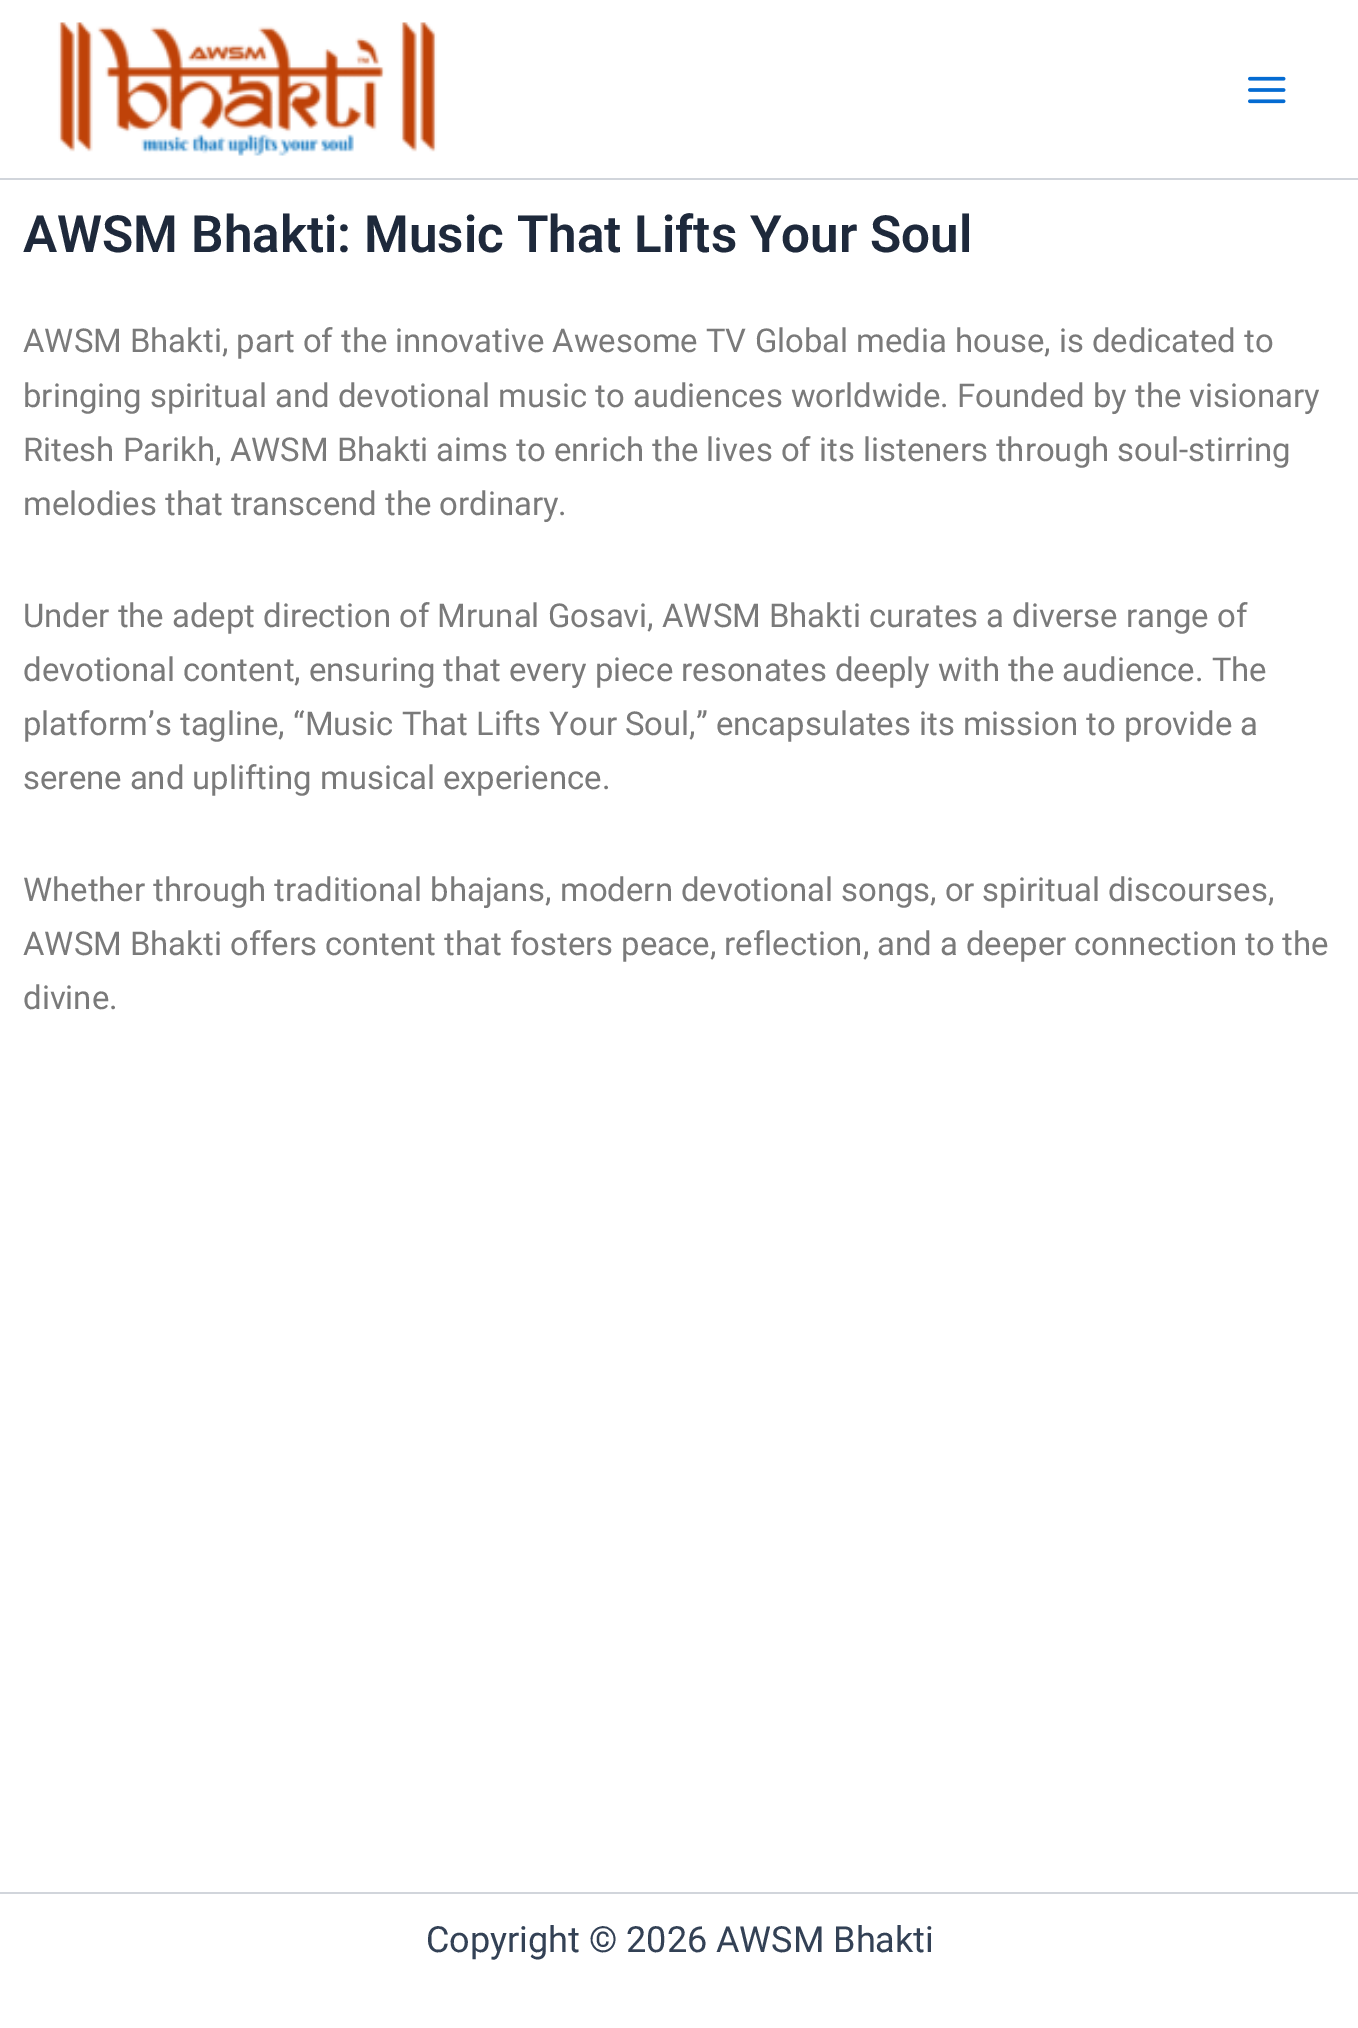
%!PS
<< /PageSize [1358 2028] >> setpagedevice
/mt/moveto load def
/co { dup -16 bitshift 255 div exch dup -8 bitshift 255 and 255 div exch 255 and 255 div setrgbcolor } def
/fn { [ exch dup neg 0 0 3 -1 roll 0 0 ] selectfont } def
/tx { co fn moveto show } def
/bx { co rectfill } def
/im { 5 dict begin { /h /w /y /x /name } { exch def } forall
  gsave x y translate w h scale
  w h 8 [w 0 0 h 0 0] name (r) file false 3 colorimage grestore end } def
0 2028 translate 1 -1 scale
4 setmiterlimit
0 0 1358 2028 16#FFFFFF bx
0 178 1358 2 16#D1D5DB bx
(media/1.raw) 58 22 379 134 im
(media/2.raw) 1248 76 38 28 im
0 1892 1358 2 16#D1D5DB bx
(AWSM Bhakti: Music That Lifts Your Soul) 23 252 /Roboto-SemiBold 51.25 16#1E293B tx
(AWSM Bhakti, part of the innovative Awesome TV Global media house, is dedicated to) 23 352 /Roboto-Regular 32.85 16#7A7A7A tx
(bringing spiritual and devotional music to audiences worldwide. Founded by the visionary) 23 407 /Roboto-Regular 32.85 16#7A7A7A tx
(Ritesh Parikh, AWSM Bhakti aims to enrich the lives of its listeners through soul-stirring) 23 461 /Roboto-Regular 32.85 16#7A7A7A tx
(melodies that transcend the ordinary.) 23 515 /Roboto-Regular 32.85 16#7A7A7A tx
(Under the adept direction of Mrunal Gosavi, AWSM Bhakti curates a diverse range of) 23 627 /Roboto-Regular 32.85 16#7A7A7A tx
(devotional content, ensuring that every piece resonates deeply with the audience. The) 23 681 /Roboto-Regular 32.85 16#7A7A7A tx
(platform’s tagline, “Music That Lifts Your Soul,” encapsulates its mission to provide a) 23 735 /Roboto-Regular 32.85 16#7A7A7A tx
(serene and uplifting musical experience.) 23 789 /Roboto-Regular 32.85 16#7A7A7A tx
23 901 mt -.1 0 32 (Whether through traditional bhajans, modern devotional songs, or spiritual discourses,) widthshow
(AWSM Bhakti offers content that fosters peace, reflection, and a deeper connection to the) 23 955 /Roboto-Regular 32.85 16#7A7A7A tx
(divine.) 23 1009 /Roboto-Regular 32.85 16#7A7A7A tx
(Copyright © 2026 AWSM Bhakti) 426 1952 /Roboto-Regular 36 16#334155 tx
showpage
